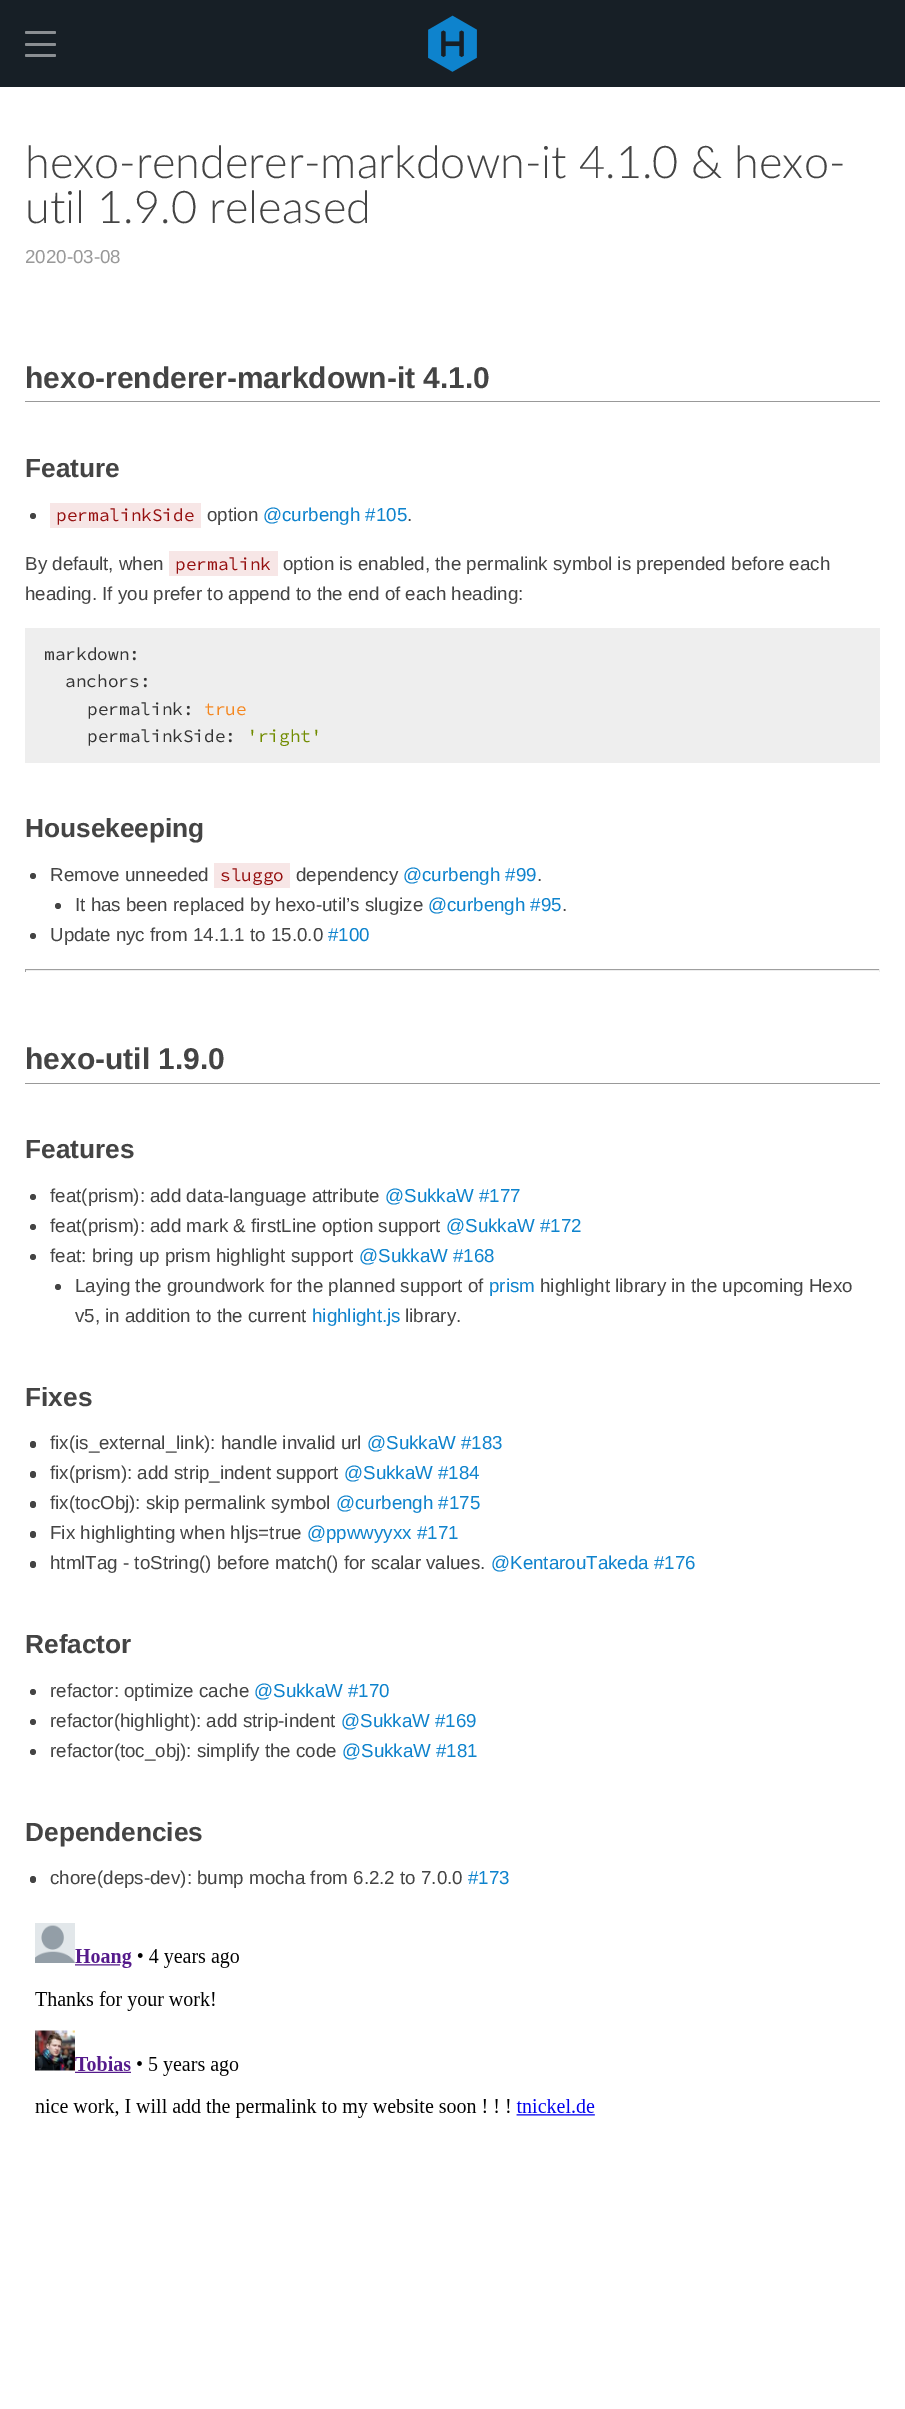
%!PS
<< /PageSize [905 2409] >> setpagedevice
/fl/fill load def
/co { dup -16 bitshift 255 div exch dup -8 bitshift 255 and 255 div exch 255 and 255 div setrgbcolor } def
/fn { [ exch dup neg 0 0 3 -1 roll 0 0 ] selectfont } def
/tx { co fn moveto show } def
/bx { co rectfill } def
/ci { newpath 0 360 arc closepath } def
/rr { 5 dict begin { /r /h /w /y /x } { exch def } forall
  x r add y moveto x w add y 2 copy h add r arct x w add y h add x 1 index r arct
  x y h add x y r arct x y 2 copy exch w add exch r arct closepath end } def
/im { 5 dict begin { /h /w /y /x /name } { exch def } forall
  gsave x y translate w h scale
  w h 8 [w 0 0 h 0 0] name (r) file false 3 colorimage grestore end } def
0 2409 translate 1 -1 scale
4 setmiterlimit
0 0 905 2409 16#171F26 bx
16#8B8F93 co
25 31 31 3 1.5 rr fl
25 43 31 3 1.5 rr fl
25 54 31 3 1.5 rr fl
(media/1.raw) 428 15 49 57 im
0 87 905 2322 16#FFFFFF bx
25 401 855 1 16#999999 bx
16#444444 co
33 516 3 ci fl
50 503 151 25 16#F7E6E6 bx
169 551 109 25 16#F7E6E6 bx
25 628 855 135 16#EEEEEE bx
16#444444 co
33 876 3 ci fl
214 863 76 25 16#F7E6E6 bx
16#444444 co
58 906 3 ci fl
33 936 3 ci fl
25 969 855 1 16#9F9F9F bx
879 969 1 3 16#EEEEEE bx
25 970 855 1 16#EEEEEE bx
25 969 1 3 16#9F9F9F bx
25 1083 855 1 16#999999 bx
16#444444 co
33 1197 3 ci fl
33 1227 3 ci fl
33 1257 3 ci fl
58 1287 3 ci fl
30 1441 6 7 3 rr fl
30 1471 6 7 3 rr fl
30 1501 6 7 3 rr fl
30 1531 6 7 3 rr fl
30 1561 6 7 3 rr fl
33 1692 3 ci fl
33 1722 3 ci fl
33 1752 3 ci fl
30 1876 6 7 3 rr fl
(media/2.raw) 35 1923 560 195 im
(hexo-renderer-markdown-it 4.1.0 & hexo-) 25 178 /Lato-Light 45 16#444444 tx
(util 1.9.0 released) 25 223 /Lato-Light 45 16#444444 tx
(2020-03-08) 25 263 /LiberationSans-Regular 18.75 16#999999 tx
(hexo-renderer-markdown-it 4.1.0) 25 388 /LiberationSans-Bold 30 16#444444 tx
(Feature) 25 477 /LiberationSans-Bold 26.25 16#444444 tx
(permalinkSide) 56 521 /SourceCodePro-Regular 17.75 16#950F0F tx
(option) 207 521 /LiberationSans-Regular 18.75 16#444444 tx
(@curbengh #105) 263 521 /LiberationSans-Regular 18.75 16#0E83CD tx
(.) 407 521 /LiberationSans-Regular 18.75 16#444444 tx
(By default, when) 25 570 /LiberationSans-Regular 18.75 16#444444 tx
(permalink) 175 570 /SourceCodePro-Regular 17.75 16#950F0F tx
(option is enabled, the permalink symbol is prepended before each) 283 570 /LiberationSans-Regular 18.75 16#444444 tx
(heading. If you prefer to append to the end of each heading:) 25 600 /LiberationSans-Regular 18.75 16#444444 tx
(markdown:) 44 660 /SourceCodePro-Regular 17.75 16#333333 tx
(anchors:) 65 687 /SourceCodePro-Regular 17.75 16#333333 tx
(permalink:) 87 715 /SourceCodePro-Regular 17.75 16#333333 tx
(true) 204 715 /SourceCodePro-Regular 17.75 16#F5871F tx
(permalinkSide:) 87 742 /SourceCodePro-Regular 17.75 16#333333 tx
('right') 247 742 /SourceCodePro-Regular 17.75 16#718C00 tx
(Housekeeping) 25 837 /LiberationSans-Bold 26.25 16#444444 tx
(Remove unneeded) 50 881 /LiberationSans-Regular 18.75 16#444444 tx
(sluggo) 220 881 /SourceCodePro-Regular 17.75 16#950F0F tx
(dependency) 296 881 /LiberationSans-Regular 18.75 16#444444 tx
(@curbengh #99) 403 881 /LiberationSans-Regular 18.75 16#0E83CD tx
(.) 537 881 /LiberationSans-Regular 18.75 16#444444 tx
(It has been replaced by hexo-util’s slugize) 75 911 /LiberationSans-Regular 18.75 16#444444 tx
(@curbengh #95) 428 911 /LiberationSans-Regular 18.75 16#0E83CD tx
(.) 562 911 /LiberationSans-Regular 18.75 16#444444 tx
(Update nyc from 14.1.1 to 15.0.0) 50 941 /LiberationSans-Regular 18.75 16#444444 tx
(#100) 328 941 /LiberationSans-Regular 18.75 16#0E83CD tx
(hexo-util 1.9.0) 25 1069 /LiberationSans-Bold 30 16#444444 tx
(Features) 25 1158 /LiberationSans-Bold 26.25 16#444444 tx
(feat\(prism\): add data-language attribute) 50 1202 /LiberationSans-Regular 18.75 16#444444 tx
(@SukkaW #177) 385 1202 /LiberationSans-Regular 18.75 16#0E83CD tx
(feat\(prism\): add mark & firstLine option support) 50 1232 /LiberationSans-Regular 18.75 16#444444 tx
(@SukkaW #172) 446 1232 /LiberationSans-Regular 18.75 16#0E83CD tx
(feat: bring up prism highlight support) 50 1262 /LiberationSans-Regular 18.75 16#444444 tx
(@SukkaW #168) 359 1262 /LiberationSans-Regular 18.75 16#0E83CD tx
(Laying the groundwork for the planned support of) 75 1292 /LiberationSans-Regular 18.75 16#444444 tx
(prism) 489 1292 /LiberationSans-Regular 18.75 16#0E83CD tx
(highlight library in the upcoming Hexo) 540 1292 /LiberationSans-Regular 18.75 16#444444 tx
(v5, in addition to the current) 75 1322 /LiberationSans-Regular 18.75 16#444444 tx
(highlight.js) 312 1322 /LiberationSans-Regular 18.75 16#0E83CD tx
(library.) 405 1322 /LiberationSans-Regular 18.75 16#444444 tx
(Fixes) 25 1406 /LiberationSans-Bold 26.25 16#444444 tx
(fix\(is_external_link\): handle invalid url) 50 1449 /LiberationSans-Regular 18.75 16#444444 tx
(@SukkaW #183) 367 1449 /LiberationSans-Regular 18.75 16#0E83CD tx
(fix\(prism\): add strip_indent support) 50 1479 /LiberationSans-Regular 18.75 16#444444 tx
(@SukkaW #184) 344 1479 /LiberationSans-Regular 18.75 16#0E83CD tx
(fix\(tocObj\): skip permalink symbol) 50 1509 /LiberationSans-Regular 18.75 16#444444 tx
(@curbengh #175) 336 1509 /LiberationSans-Regular 18.75 16#0E83CD tx
(Fix highlighting when hljs=true) 50 1539 /LiberationSans-Regular 18.75 16#444444 tx
(@ppwwyyxx #171) 307 1539 /LiberationSans-Regular 18.75 16#0E83CD tx
(htmlTag - toString\(\) before match\(\) for scalar values.) 50 1569 /LiberationSans-Regular 18.75 16#444444 tx
(@KentarouTakeda #176) 491 1569 /LiberationSans-Regular 18.75 16#0E83CD tx
(Refactor) 25 1653 /LiberationSans-Bold 26.25 16#444444 tx
(refactor: optimize cache) 50 1697 /LiberationSans-Regular 18.75 16#444444 tx
(@SukkaW #170) 254 1697 /LiberationSans-Regular 18.75 16#0E83CD tx
(refactor\(highlight\): add strip-indent) 50 1727 /LiberationSans-Regular 18.75 16#444444 tx
(@SukkaW #169) 341 1727 /LiberationSans-Regular 18.75 16#0E83CD tx
(refactor\(toc_obj\): simplify the code) 50 1757 /LiberationSans-Regular 18.75 16#444444 tx
(@SukkaW #181) 342 1757 /LiberationSans-Regular 18.75 16#0E83CD tx
(Dependencies) 25 1841 /LiberationSans-Bold 26.25 16#444444 tx
(chore\(deps-dev\): bump mocha from 6.2.2 to 7.0.0) 50 1884 /LiberationSans-Regular 18.75 16#444444 tx
(#173) 468 1884 /LiberationSans-Regular 18.75 16#0E83CD tx
showpage
